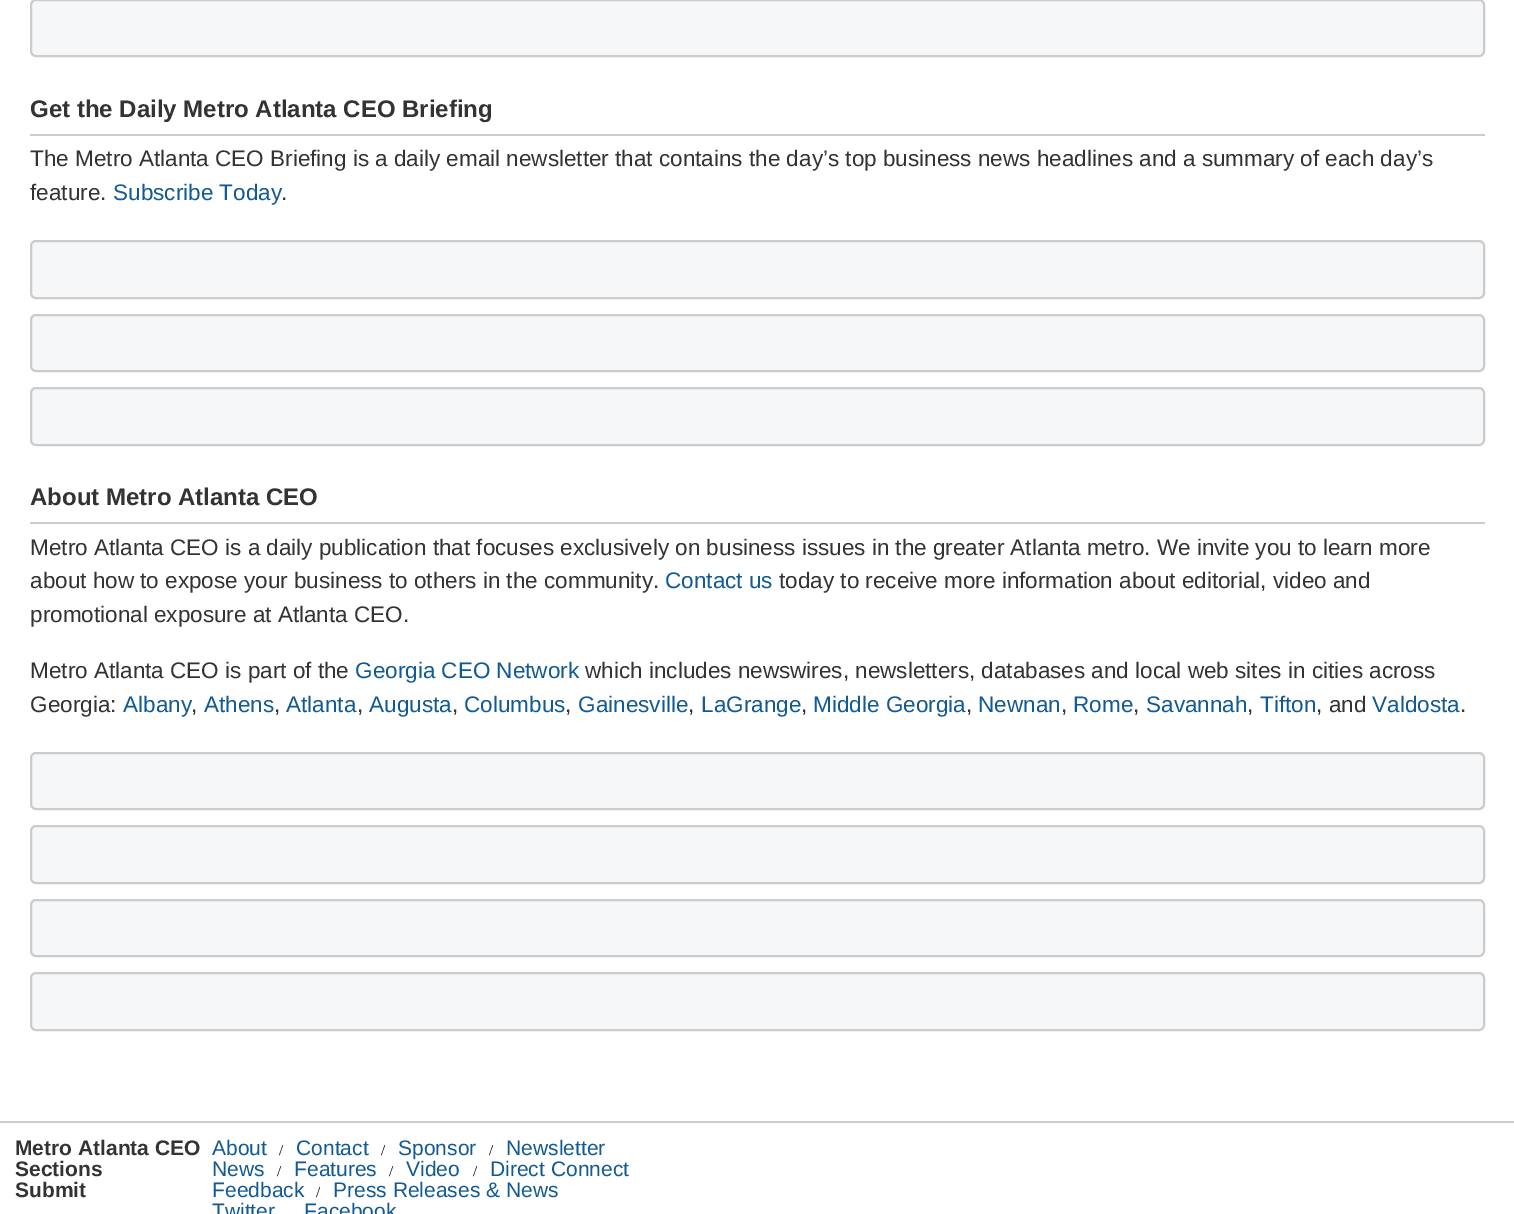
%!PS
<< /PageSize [1514 1214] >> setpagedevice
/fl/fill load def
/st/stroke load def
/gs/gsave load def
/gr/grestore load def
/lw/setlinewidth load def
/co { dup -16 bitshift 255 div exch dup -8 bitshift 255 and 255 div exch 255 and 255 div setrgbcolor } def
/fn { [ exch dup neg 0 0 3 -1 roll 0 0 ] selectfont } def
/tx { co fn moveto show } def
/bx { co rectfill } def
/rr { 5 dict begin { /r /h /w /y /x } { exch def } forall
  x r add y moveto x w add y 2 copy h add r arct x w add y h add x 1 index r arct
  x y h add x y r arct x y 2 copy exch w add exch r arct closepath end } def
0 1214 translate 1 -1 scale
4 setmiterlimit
0 0 1514 1214 16#FFFFFF bx
16#F5F7F9 co
31 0 1453 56 5 rr gs fl gr
16#CCCCCC co
2 lw
st
30 134 1455 2 16#CCCCCC bx
16#F5F7F9 co
31 241 1453 57 5 rr gs fl gr
16#CCCCCC co
st
16#F5F7F9 co
31 315 1453 56 5 rr gs fl gr
16#CCCCCC co
st
16#F5F7F9 co
31 388 1453 57 5 rr gs fl gr
16#CCCCCC co
st
30 522 1455 2 16#CCCCCC bx
16#F5F7F9 co
31 753 1453 56 5 rr gs fl gr
16#CCCCCC co
st
16#F5F7F9 co
31 826 1453 57 5 rr gs fl gr
16#CCCCCC co
st
16#F5F7F9 co
31 900 1453 56 5 rr gs fl gr
16#CCCCCC co
st
16#F5F7F9 co
31 973 1453 57 5 rr gs fl gr
16#CCCCCC co
st
0 1121 1514 2 16#CCCCCC bx
(Get the Daily Metro Atlanta CEO Briefing) 30 117 /LiberationSans-Bold 24 16#333333 tx
(The Metro Atlanta CEO Briefing is a daily email newsletter that contains the day’s top business news headlines and a summary of each day’s) 30 166 /LiberationSans-Regular 22.5 16#333333 tx
(feature.) 30 200 /LiberationSans-Regular 22.5 16#333333 tx
(Subscribe Today) 113 200 /LiberationSans-Regular 22.5 16#125A95 tx
(.) 281 200 /LiberationSans-Regular 22.5 16#333333 tx
(About Metro Atlanta CEO) 30 505 /LiberationSans-Bold 24 16#333333 tx
(Metro Atlanta CEO is a daily publication that focuses exclusively on business issues in the greater Atlanta metro. We invite you to learn more) 30 555 /LiberationSans-Regular 22.5 16#333333 tx
(about how to expose your business to others in the community.) 30 588 /LiberationSans-Regular 22.5 16#333333 tx
(Contact us) 665 588 /LiberationSans-Regular 22.5 16#125A95 tx
(today to receive more information about editorial, video and) 779 588 /LiberationSans-Regular 22.5 16#333333 tx
(promotional exposure at Atlanta CEO.) 30 622 /LiberationSans-Regular 22.5 16#333333 tx
(Metro Atlanta CEO is part of the) 30 678 /LiberationSans-Regular 22.5 16#333333 tx
(Georgia CEO Network) 355 678 /LiberationSans-Regular 22.5 16#125A95 tx
(which includes newswires, newsletters, databases and local web sites in cities across) 585 678 /LiberationSans-Regular 22.5 16#333333 tx
(Georgia:) 30 712 /LiberationSans-Regular 22.5 16#333333 tx
(Albany) 123 712 /LiberationSans-Regular 22.5 16#125A95 tx
(,) 191 712 /LiberationSans-Regular 22.5 16#333333 tx
(Athens) 204 712 /LiberationSans-Regular 22.5 16#125A95 tx
(,) 274 712 /LiberationSans-Regular 22.5 16#333333 tx
(Atlanta) 286 712 /LiberationSans-Regular 22.5 16#125A95 tx
(,) 357 712 /LiberationSans-Regular 22.5 16#333333 tx
(Augusta) 369 712 /LiberationSans-Regular 22.5 16#125A95 tx
(,) 452 712 /LiberationSans-Regular 22.5 16#333333 tx
(Columbus) 464 712 /LiberationSans-Regular 22.5 16#125A95 tx
(,) 565 712 /LiberationSans-Regular 22.5 16#333333 tx
(Gainesville) 578 712 /LiberationSans-Regular 22.5 16#125A95 tx
(,) 688 712 /LiberationSans-Regular 22.5 16#333333 tx
(LaGrange) 701 712 /LiberationSans-Regular 22.5 16#125A95 tx
(,) 801 712 /LiberationSans-Regular 22.5 16#333333 tx
(Middle Georgia) 813 712 /LiberationSans-Regular 22.5 16#125A95 tx
(,) 966 712 /LiberationSans-Regular 22.5 16#333333 tx
(Newnan) 978 712 /LiberationSans-Regular 22.5 16#125A95 tx
(,) 1061 712 /LiberationSans-Regular 22.5 16#333333 tx
(Rome) 1073 712 /LiberationSans-Regular 22.5 16#125A95 tx
(,) 1133 712 /LiberationSans-Regular 22.5 16#333333 tx
(Savannah) 1146 712 /LiberationSans-Regular 22.5 16#125A95 tx
(,) 1247 712 /LiberationSans-Regular 22.5 16#333333 tx
(Tifton) 1260 712 /LiberationSans-Regular 22.5 16#125A95 tx
(, and) 1316 712 /LiberationSans-Regular 22.5 16#333333 tx
(Valdosta) 1372 712 /LiberationSans-Regular 22.5 16#125A95 tx
(.) 1460 712 /LiberationSans-Regular 22.5 16#333333 tx
(Metro Atlanta CEO) 15 1155 /LiberationSans-Bold 21 16#333333 tx
(About) 212 1155 /LiberationSans-Regular 21 16#125A95 tx
(/) 279 1155 /LiberationSerif-Regular 15 16#000000 tx
(Contact) 296 1155 /LiberationSans-Regular 21 16#125A95 tx
(/) 381 1155 /LiberationSerif-Regular 15 16#000000 tx
(Sponsor) 398 1155 /LiberationSans-Regular 21 16#125A95 tx
(/) 489 1155 /LiberationSerif-Regular 15 16#000000 tx
(Newsletter) 506 1155 /LiberationSans-Regular 21 16#125A95 tx
(Sections) 15 1176 /LiberationSans-Bold 21 16#333333 tx
(News) 212 1176 /LiberationSans-Regular 21 16#125A95 tx
(/) 277 1176 /LiberationSerif-Regular 15 16#000000 tx
(Features) 294 1176 /LiberationSans-Regular 21 16#125A95 tx
(/) 389 1176 /LiberationSerif-Regular 15 16#000000 tx
(Video) 406 1176 /LiberationSans-Regular 21 16#125A95 tx
(/) 473 1176 /LiberationSerif-Regular 15 16#000000 tx
(Direct Connect) 490 1176 /LiberationSans-Regular 21 16#125A95 tx
(Submit) 15 1197 /LiberationSans-Bold 21 16#333333 tx
(Feedback) 212 1197 /LiberationSans-Regular 21 16#125A95 tx
(/) 316 1197 /LiberationSerif-Regular 15 16#000000 tx
(Press Releases & News) 333 1197 /LiberationSans-Regular 21 16#125A95 tx
(Twitter) 212 1218 /LiberationSans-Regular 21 16#125A95 tx
(Facebook) 304 1218 /LiberationSans-Regular 21 16#125A95 tx
showpage
